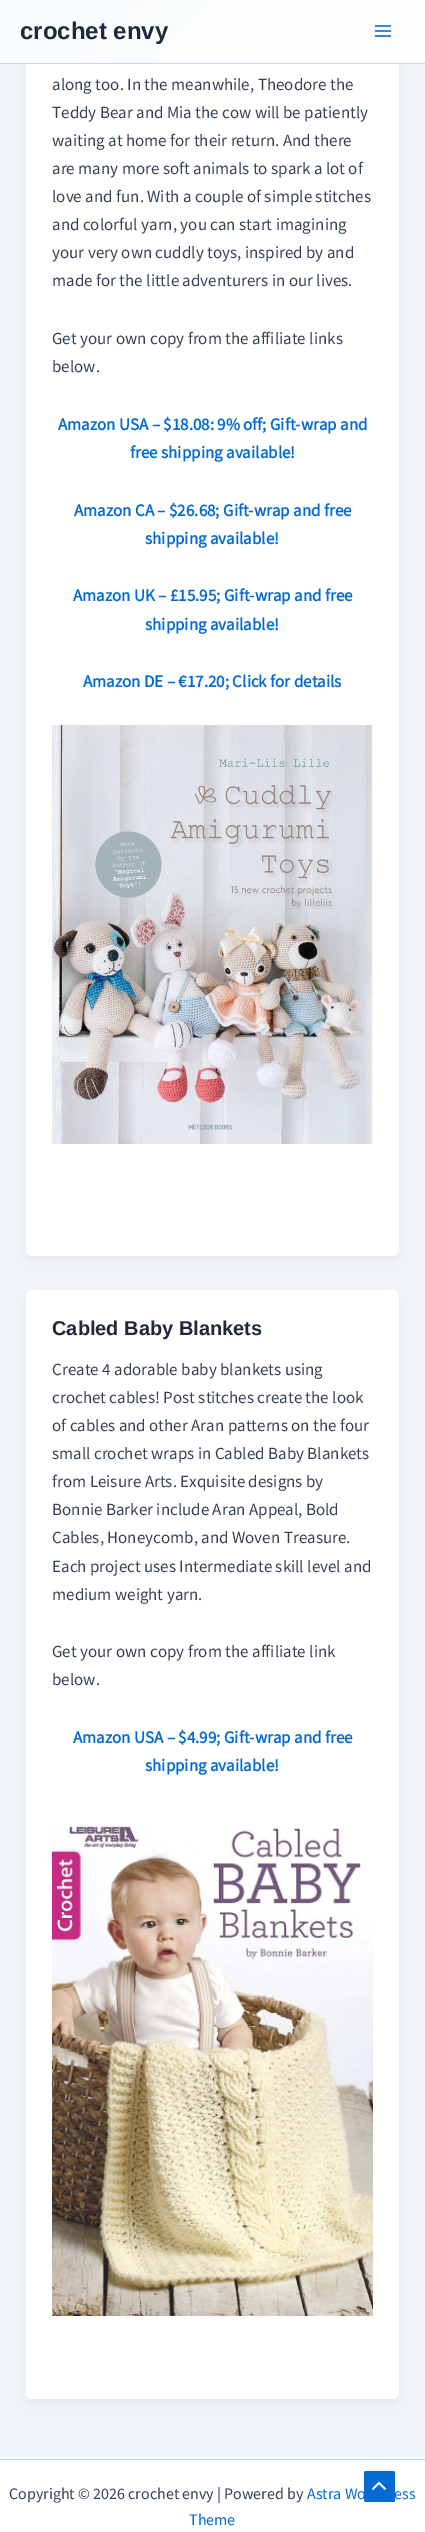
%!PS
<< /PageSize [425 2532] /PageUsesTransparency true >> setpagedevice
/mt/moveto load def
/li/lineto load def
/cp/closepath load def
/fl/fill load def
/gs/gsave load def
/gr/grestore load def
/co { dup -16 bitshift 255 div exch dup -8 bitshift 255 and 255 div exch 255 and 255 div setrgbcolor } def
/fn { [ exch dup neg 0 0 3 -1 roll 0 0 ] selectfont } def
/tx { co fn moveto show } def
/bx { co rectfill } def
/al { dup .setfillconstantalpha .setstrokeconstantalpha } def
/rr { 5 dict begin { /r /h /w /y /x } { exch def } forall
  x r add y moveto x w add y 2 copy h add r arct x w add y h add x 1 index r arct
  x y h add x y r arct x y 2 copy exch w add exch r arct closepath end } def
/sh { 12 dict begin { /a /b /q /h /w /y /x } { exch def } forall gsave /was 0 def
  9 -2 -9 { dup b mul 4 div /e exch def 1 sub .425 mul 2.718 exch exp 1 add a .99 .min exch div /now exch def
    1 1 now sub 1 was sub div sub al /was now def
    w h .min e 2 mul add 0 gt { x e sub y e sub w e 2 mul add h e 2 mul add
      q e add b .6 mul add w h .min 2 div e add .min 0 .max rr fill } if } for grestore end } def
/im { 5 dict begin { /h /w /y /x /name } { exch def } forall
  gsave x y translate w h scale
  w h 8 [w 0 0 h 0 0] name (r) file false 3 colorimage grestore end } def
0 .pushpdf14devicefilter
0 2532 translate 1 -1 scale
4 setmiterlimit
0 0 425 2532 16#F0F5FA bx
16#101828 co
28 -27 369 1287 4 7.5 .05 sh
16#FFFFFF co
26 -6 373 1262 6 rr fl
gs 0 0 mt 425 0 li 425 63 li 0 63 li cp clip newpath
<< /ShadingType 2 /ColorSpace /DeviceRGB /Coords [90 -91 335 154] /Extend [true true] /Function << /FunctionType 2 /Domain [0 1] /C0 [.973 .988 .996] /C1 [1 1 1] /N 1 >> >> shfill gr
0 63 425 1 16#D1D5DB bx
(media/1.raw) 374 25 18 12 im
(media/2.raw) 52 725 321 419 im
16#101828 co
28 1298 369 1105 4 7.5 .05 sh
16#FFFFFF co
26 1290 373 1109 6 rr fl
(media/3.raw) 52 1825 321 491 im
0 2460 425 72 16#FFFFFF bx
0 2459 425 1 16#D1D5DB bx
16#046BD2 co
364 2471 31 31 2 rr fl
(media/4.raw) 372 2481 15 9 im
(crochet envy) 20 39 /LiberationSans-Bold 24 16#1E293B tx
(along too. In the meanwhile, Theodore the) 52 90 /SourceSansPro-Regular 17 16#334155 tx
(Teddy Bear and Mia the cow will be patiently) 52 118 /SourceSansPro-Regular 17 16#334155 tx
(waiting at home for their return. And there) 52 146 /SourceSansPro-Regular 17 16#334155 tx
(are many more soft animals to spark a lot of) 52 174 /SourceSansPro-Regular 17 16#334155 tx
(love and fun. With a couple of simple stitches) 52 202 /SourceSansPro-Regular 17 16#334155 tx
(and colorful yarn, you can start imagining) 52 230 /SourceSansPro-Regular 17 16#334155 tx
(your very own cuddly toys, inspired by and) 52 258 /SourceSansPro-Regular 17 16#334155 tx
(made for the little adventurers in our lives.) 52 286 /SourceSansPro-Regular 17 16#334155 tx
(Get your own copy from the affiliate links) 52 344 /SourceSansPro-Regular 17 16#334155 tx
(below.) 52 372 /SourceSansPro-Regular 17 16#334155 tx
(Amazon USA – $18.08: 9% off; Gift-wrap and) 58 430 /SourceSansPro-Bold 17 16#046BD2 tx
(free shipping available!) 130 458 /SourceSansPro-Bold 17 16#046BD2 tx
(Amazon CA – $26.68; Gift-wrap and free) 74 516 /SourceSansPro-Bold 17 16#046BD2 tx
(shipping available!) 145 544 /SourceSansPro-Bold 17 16#046BD2 tx
(Amazon UK – £15.95; Gift-wrap and free) 73 601 /SourceSansPro-Bold 17 16#046BD2 tx
(shipping available!) 145 630 /SourceSansPro-Bold 17 16#046BD2 tx
(Amazon DE – €17.20; Click for details) 83 687 /SourceSansPro-Bold 17 16#046BD2 tx
(Cabled Baby Blankets) 52 1335 /LiberationSans-Bold 20 16#1E293B tx
(Create 4 adorable baby blankets using) 52 1375 /SourceSansPro-Regular 17 16#334155 tx
(crochet cables! Post stitches create the look) 52 1403 /SourceSansPro-Regular 17 16#334155 tx
(of cables and other Aran patterns on the four) 52 1431 /SourceSansPro-Regular 17 16#334155 tx
(small crochet wraps in Cabled Baby Blankets) 52 1459 /SourceSansPro-Regular 17 16#334155 tx
(from Leisure Arts. Exquisite designs by) 52 1487 /SourceSansPro-Regular 17 16#334155 tx
(Bonnie Barker include Aran Appeal, Bold) 52 1515 /SourceSansPro-Regular 17 16#334155 tx
(Cables, Honeycomb, and Woven Treasure.) 52 1543 /SourceSansPro-Regular 17 16#334155 tx
(Each project uses Intermediate skill level and) 52 1572 /SourceSansPro-Regular 17 16#334155 tx
(medium weight yarn.) 52 1600 /SourceSansPro-Regular 17 16#334155 tx
(Get your own copy from the affiliate link) 52 1657 /SourceSansPro-Regular 17 16#334155 tx
(below.) 52 1685 /SourceSansPro-Regular 17 16#334155 tx
(Amazon USA – $4.99; Gift-wrap and free) 73 1743 /SourceSansPro-Bold 17 16#046BD2 tx
(shipping available!) 145 1771 /SourceSansPro-Bold 17 16#046BD2 tx
(Copyright © 2026 crochet envy | Powered by) 9 2499 /SourceSansPro-Regular 16 16#334155 tx
(Astra Wo) 307 2499 /SourceSansPro-Regular 16 16#046BD2 tx
(ess) 394 2499 /SourceSansPro-Regular 16 16#046BD2 tx
(Theme) 189 2525 /SourceSansPro-Regular 16 16#046BD2 tx
.poppdf14devicefilter showpage
